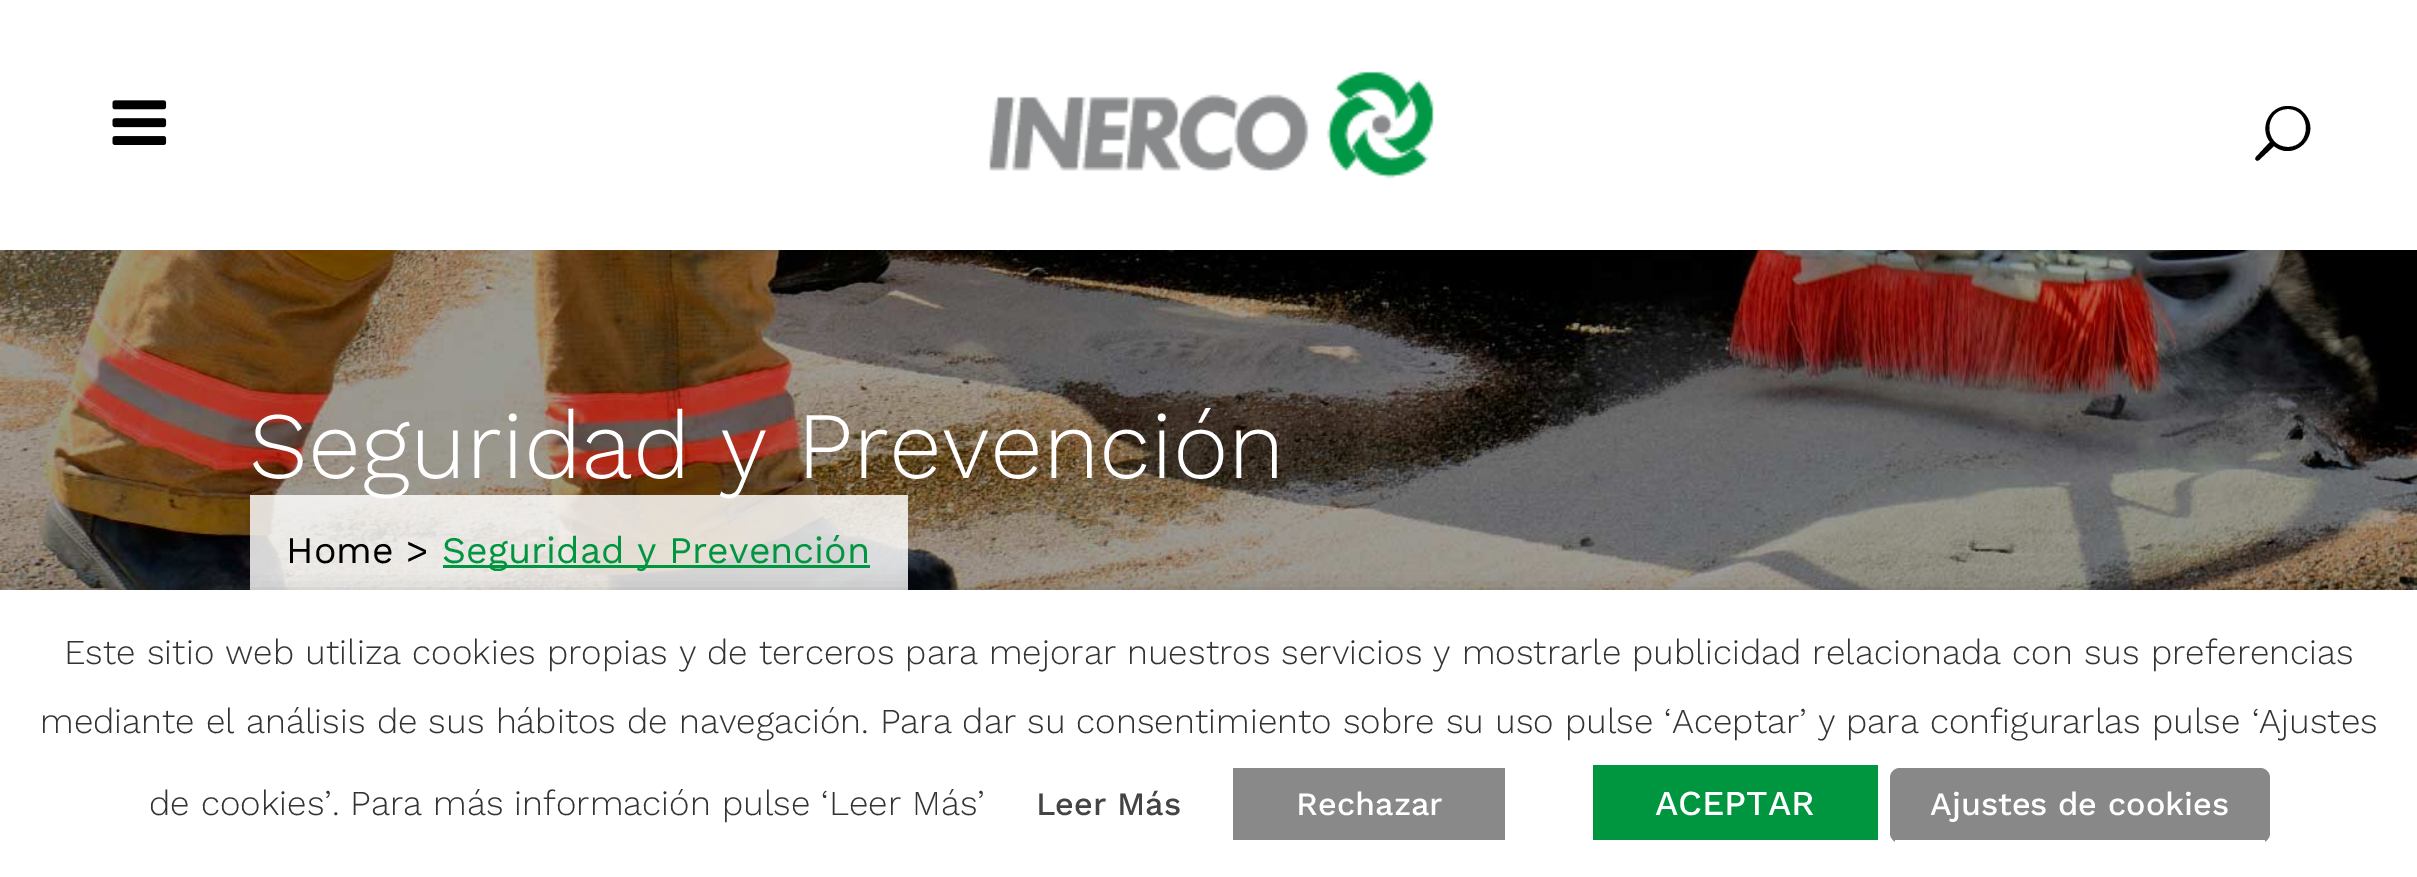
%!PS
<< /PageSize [2417 877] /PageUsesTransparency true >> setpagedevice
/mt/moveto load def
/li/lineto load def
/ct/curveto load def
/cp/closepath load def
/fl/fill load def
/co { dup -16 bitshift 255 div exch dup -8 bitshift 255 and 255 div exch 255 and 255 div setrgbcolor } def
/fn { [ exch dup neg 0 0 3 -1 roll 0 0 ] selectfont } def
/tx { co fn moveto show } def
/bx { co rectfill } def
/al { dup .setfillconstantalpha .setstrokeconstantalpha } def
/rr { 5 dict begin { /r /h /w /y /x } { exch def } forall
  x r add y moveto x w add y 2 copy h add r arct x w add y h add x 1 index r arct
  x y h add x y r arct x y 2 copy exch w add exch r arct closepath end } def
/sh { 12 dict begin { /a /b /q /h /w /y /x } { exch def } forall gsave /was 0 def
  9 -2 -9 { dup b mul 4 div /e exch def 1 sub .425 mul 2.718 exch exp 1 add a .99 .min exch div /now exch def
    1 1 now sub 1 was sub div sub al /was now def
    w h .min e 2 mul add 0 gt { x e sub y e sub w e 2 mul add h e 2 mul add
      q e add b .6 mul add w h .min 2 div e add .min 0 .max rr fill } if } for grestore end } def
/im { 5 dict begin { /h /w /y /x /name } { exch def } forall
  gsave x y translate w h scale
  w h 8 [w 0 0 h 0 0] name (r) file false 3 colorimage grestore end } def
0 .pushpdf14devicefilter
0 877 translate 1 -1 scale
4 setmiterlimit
0 0 2417 877 16#FFFFFF bx
(media/1.raw) 112 100 55 45 im
(media/2.raw) 989 71 445 108 im
16#000000 co
2288 106 mt 2294 106 2299 108 2303 112 ct 2324 133 2295 163 2274 146 ct 2259 160 li 2258 161 2256 161 2256 160 ct 2255 160 2255 158 2256 157 ct 2270 142 li 2259 128 2269 106 2288 106 ct cp 2288 147 mt 2312 147 2312 109 2288 109 ct 2263 109 2263 147 2288 147 ct cp fl
(media/3.raw) 0 250 2417 340 im
(Seguridad y Prevención) 249 478 /WorkSans-Light 95 16#FFFFFF tx
0.83 al
250 495 658 95 16#FFFFFF bx
1 al
(Home >) 286 563 /WorkSans-Regular 37.5 16#000000 tx
443 565 427 3 16#009640 bx
(Seguridad y Prevención) 442 563 /WorkSans-Regular 37.5 16#009640 tx
16#000000 co
0 603 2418 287 0 12.5 .5 sh
0 590 2417 287 16#FFFFFF bx
(Este sitio web utiliza cookies propias y de terceros para mejorar nuestros servicios y mostrarle publicidad relacionada con sus preferencias) 64 664 /WorkSans-Light 35 16#333333 tx
(mediante el análisis de sus hábitos de navegación. Para dar su consentimiento sobre su uso pulse ‘Aceptar’ y para configurarlas pulse ‘Ajustes) 40 733 /WorkSans-Light 35 16#333333 tx
(de cookies’. Para más información pulse ‘Leer Más’) 149 815 /WorkSans-Light 35 16#333333 tx
(Leer Más) 1036 815 /WorkSans-Medium 32.5 16#444444 tx
1233 768 272 72 16#898989 bx
(Rechazar) 1296 815 /WorkSans-Medium 32.5 16#FFFFFF tx
1593 765 285 75 16#009640 bx
(ACEPTAR) 1655 815 /WorkSans-Medium 35 16#FFFFFF tx
16#898888 co
1890 768 380 75 10 rr fl
1895 840 370 3 16#FFFFFF bx
(Ajustes de cookies) 1930 815 /WorkSans-Medium 32.5 16#FFFFFF tx
.poppdf14devicefilter showpage
